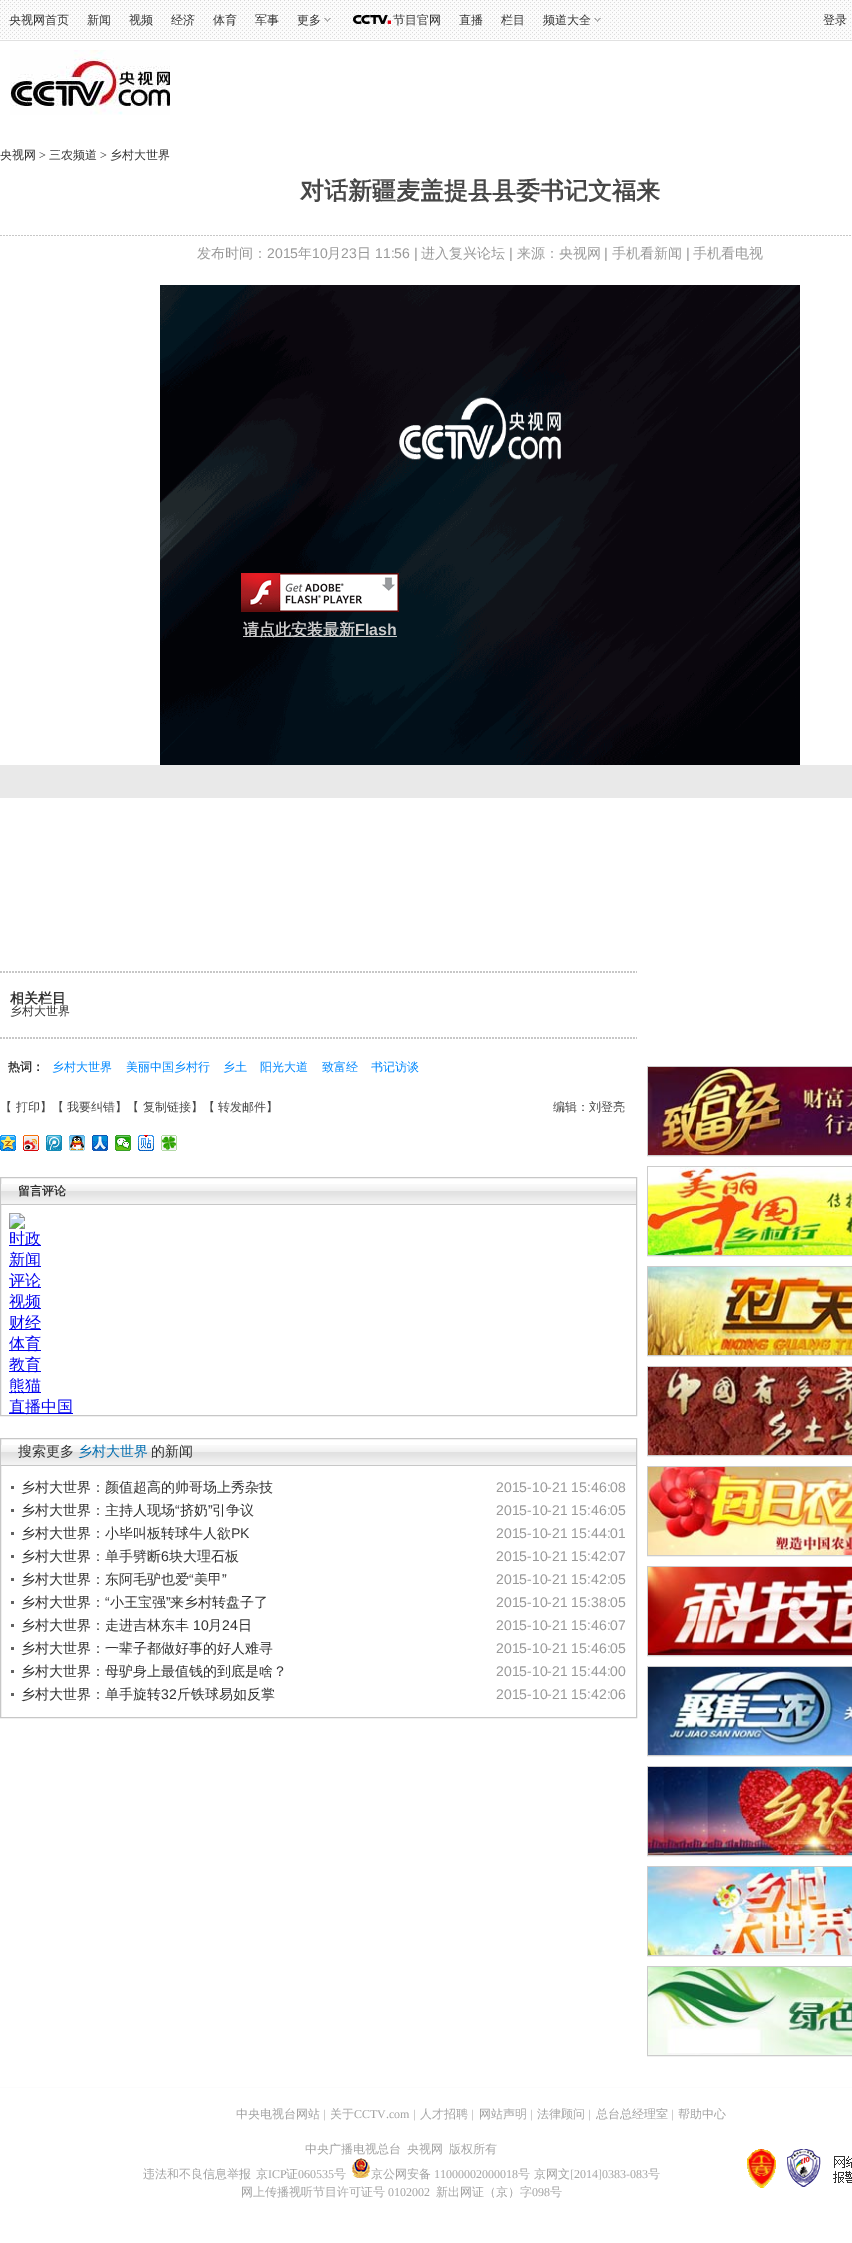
%!PS
<< /PageSize [852 2243] >> setpagedevice
/co { dup -16 bitshift 255 div exch dup -8 bitshift 255 and 255 div exch 255 and 255 div setrgbcolor } def
/fn { [ exch dup neg 0 0 3 -1 roll 0 0 ] selectfont } def
/tx { co fn moveto show } def
/bx { co rectfill } def
/im { 5 dict begin { /h /w /y /x /name } { exch def } forall
  gsave x y translate w h scale
  w h 8 [w 0 0 h 0 0] name (r) file false 3 colorimage grestore end } def
0 2243 translate 1 -1 scale
4 setmiterlimit
0 0 852 2243 16#FFFFFF bx
(media/1.raw) 0 0 852 39 im
0 40 852 1 16#E1E1E1 bx
(media/2.raw) 324 18 7 4 im
(media/3.raw) 353 15 38 9 im
(media/4.raw) 594 18 7 4 im
(media/5.raw) 10 50 160 65 im
(media/6.raw) 0 235 851 1 im
(media/7.raw) 160 285 640 480 im
(media/8.raw) 241 573 158 39 im
243 636 154 1 16#CCCCCC bx
0 765 852 33 16#E9E9E9 bx
(media/9.raw) 0 971 637 2 im
(media/9.raw) 0 1037 637 2 im
(media/10.raw) 0 1135 16 16 im
(media/11.raw) 23 1135 16 16 im
(media/12.raw) 46 1135 16 16 im
(media/13.raw) 69 1135 16 16 im
(media/14.raw) 92 1135 16 16 im
(media/15.raw) 115 1135 16 16 im
(media/16.raw) 138 1135 16 16 im
(media/17.raw) 161 1135 16 16 im
16#C7C7C7 co
.5 1177.5 636 238 rectstroke
(media/18.raw) 1 1184 635 20 im
1 1204 635 1 16#C7C7C7 bx
(media/19.raw) 9 1213 64 202 im
.5 1438.5 636 279 rectstroke
(media/18.raw) 1 1445 635 20 im
1 1465 635 1 16#C7C7C7 bx
11 1486 3 3 16#626262 bx
11 1509 3 3 16#626262 bx
11 1532 3 3 16#626262 bx
11 1555 3 3 16#626262 bx
11 1578 3 3 16#626262 bx
11 1601 3 3 16#626262 bx
11 1624 3 3 16#626262 bx
11 1647 3 3 16#626262 bx
11 1670 3 3 16#626262 bx
11 1693 3 3 16#626262 bx
16#CCCCCC co
647.5 1066.5 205 89 rectstroke
(media/20.raw) 648 1067 204 88 im
647.5 1166.5 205 89 rectstroke
(media/21.raw) 648 1167 204 88 im
647.5 1266.5 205 89 rectstroke
(media/22.raw) 648 1267 204 88 im
647.5 1366.5 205 89 rectstroke
(media/23.raw) 648 1367 204 88 im
647.5 1466.5 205 89 rectstroke
(media/24.raw) 648 1467 204 88 im
647.5 1566.5 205 89 rectstroke
(media/25.raw) 648 1567 204 88 im
647.5 1666.5 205 89 rectstroke
(media/26.raw) 648 1667 204 88 im
647.5 1766.5 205 89 rectstroke
(media/27.raw) 648 1767 204 88 im
647.5 1866.5 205 89 rectstroke
(media/28.raw) 648 1867 204 88 im
647.5 1966.5 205 89 rectstroke
(media/29.raw) 648 1967 204 88 im
0 2087 852 1 16#FCFCFD bx
(media/30.raw) 352 2158 18 20 im
(media/31.raw) 747 2149 29 39 im
(media/32.raw) 787 2149 65 38 im
(央视网首页) 9 24 /WenQuanYiZenHei-Medium 12 16#333333 tx
(新闻) 87 24 /WenQuanYiZenHei-Medium 12 16#333333 tx
(视频) 129 24 /WenQuanYiZenHei-Medium 12 16#333333 tx
(经济) 171 24 /WenQuanYiZenHei-Medium 12 16#333333 tx
(体育) 213 24 /WenQuanYiZenHei-Medium 12 16#333333 tx
(军事) 255 24 /WenQuanYiZenHei-Medium 12 16#333333 tx
(更多) 297 24 /WenQuanYiZenHei-Medium 12 16#333333 tx
(节目官网) 393 24 /WenQuanYiZenHei-Medium 12 16#333333 tx
(直播) 459 24 /WenQuanYiZenHei-Medium 12 16#333333 tx
(栏目) 501 24 /WenQuanYiZenHei-Medium 12 16#333333 tx
(频道大全) 543 24 /WenQuanYiZenHei-Medium 12 16#333333 tx
(登录) 823 24 /WenQuanYiZenHei-Medium 12 16#333333 tx
(央视网) 0 159 /WenQuanYiZenHei-Medium 12 16#333333 tx
(>) 39 159 /LiberationSerif-Regular 12 16#333333 tx
(三农频道) 49 159 /WenQuanYiZenHei-Medium 12 16#333333 tx
(>) 100 159 /LiberationSerif-Regular 12 16#333333 tx
(乡村大世界) 110 159 /WenQuanYiZenHei-Medium 12 16#333333 tx
(对话新疆麦盖提县县委书记文福来) 300 199 /WenQuanYiZenHei-Bold 24 16#474747 tx
(发布时间：) 197 258 /WenQuanYiZenHei-Medium 14 16#999999 tx
(2015) 267 258 /LiberationSans-Regular 14 16#999999 tx
(年) 298 258 /WenQuanYiZenHei-Medium 14 16#999999 tx
(10) 312 258 /LiberationSans-Regular 14 16#999999 tx
(月) 327 258 /WenQuanYiZenHei-Medium 14 16#999999 tx
(23) 341 258 /LiberationSans-Regular 14 16#999999 tx
(日) 357 258 /WenQuanYiZenHei-Medium 14 16#999999 tx
(11:56 |) 375 258 /LiberationSans-Regular 14 16#999999 tx
(进入复兴论坛) 421 258 /WenQuanYiZenHei-Medium 14 16#999999 tx
(|) 509 258 /LiberationSans-Regular 14 16#999999 tx
(来源：央视网) 517 258 /WenQuanYiZenHei-Medium 14 16#999999 tx
(|) 604 258 /LiberationSans-Regular 14 16#999999 tx
(手机看新闻) 612 258 /WenQuanYiZenHei-Medium 14 16#999999 tx
(|) 686 258 /LiberationSans-Regular 14 16#999999 tx
(手机看电视) 693 258 /WenQuanYiZenHei-Medium 14 16#999999 tx
(请点此安装最新) 243 635 /WenQuanYiZenHei-Bold 16 16#CCCCCC tx
(Flash) 355 635 /LiberationSans-Bold 16 16#CCCCCC tx
(相关栏目) 10 1003 /WenQuanYiZenHei-Bold 14 16#333333 tx
(乡村大世界) 10 1015 /WenQuanYiZenHei-Medium 12 16#333333 tx
(热词：) 8 1071 /WenQuanYiZenHei-Bold 12 16#333333 tx
(乡村大世界) 52 1071 /WenQuanYiZenHei-Medium 12 16#0088FE tx
(美丽中国乡村行) 126 1071 /WenQuanYiZenHei-Medium 12 16#0088FE tx
(乡土) 223 1071 /WenQuanYiZenHei-Medium 12 16#0088FE tx
(阳光大道) 260 1071 /WenQuanYiZenHei-Medium 12 16#0088FE tx
(致富经) 322 1071 /WenQuanYiZenHei-Medium 12 16#0088FE tx
(书记访谈) 371 1071 /WenQuanYiZenHei-Medium 12 16#0088FE tx
(【 打印】【 我要纠错】【 复制链接】【 转发邮件】) 0 1111 /WenQuanYiZenHei-Medium 12 16#474747 tx
(编辑：刘登亮) 553 1111 /WenQuanYiZenHei-Medium 12 16#474747 tx
(留言评论) 18 1195 /WenQuanYiZenHei-Bold 12 16#333333 tx
(搜索更多) 18 1456 /WenQuanYiZenHei-Medium 14 16#333333 tx
(乡村大世界) 78 1456 /WenQuanYiZenHei-Medium 14 16#046FB1 tx
(的新闻) 151 1456 /WenQuanYiZenHei-Medium 14 16#333333 tx
(乡村大世界：颜值超高的帅哥场上秀杂技) 21 1492 /WenQuanYiZenHei-Medium 14 16#333333 tx
(2015-10-21 15:46:08) 496 1492 /LiberationSans-Regular 14 16#999999 tx
(乡村大世界：主持人现场) 21 1515 /WenQuanYiZenHei-Medium 14 16#333333 tx
(“) 175 1515 /LiberationSans-Regular 14 16#333333 tx
(挤奶) 180 1515 /WenQuanYiZenHei-Medium 14 16#333333 tx
(”) 208 1515 /LiberationSans-Regular 14 16#333333 tx
(引争议) 212 1515 /WenQuanYiZenHei-Medium 14 16#333333 tx
(2015-10-21 15:46:05) 496 1515 /LiberationSans-Regular 14 16#999999 tx
(乡村大世界：小毕叫板转球牛人欲) 21 1538 /WenQuanYiZenHei-Medium 14 16#333333 tx
(PK) 231 1538 /LiberationSans-Regular 14 16#333333 tx
(2015-10-21 15:44:01) 496 1538 /LiberationSans-Regular 14 16#999999 tx
(乡村大世界：单手劈断) 21 1561 /WenQuanYiZenHei-Medium 14 16#333333 tx
(6) 161 1561 /LiberationSans-Regular 14 16#333333 tx
(块大理石板) 169 1561 /WenQuanYiZenHei-Medium 14 16#333333 tx
(2015-10-21 15:42:07) 496 1561 /LiberationSans-Regular 14 16#999999 tx
(乡村大世界：东阿毛驴也爱) 21 1584 /WenQuanYiZenHei-Medium 14 16#333333 tx
(“) 189 1584 /LiberationSans-Regular 14 16#333333 tx
(美甲) 194 1584 /WenQuanYiZenHei-Medium 14 16#333333 tx
(”) 222 1584 /LiberationSans-Regular 14 16#333333 tx
(2015-10-21 15:42:05) 496 1584 /LiberationSans-Regular 14 16#999999 tx
(乡村大世界：) 21 1607 /WenQuanYiZenHei-Medium 14 16#333333 tx
(“) 105 1607 /LiberationSans-Regular 14 16#333333 tx
(小王宝强) 110 1607 /WenQuanYiZenHei-Medium 14 16#333333 tx
(”) 166 1607 /LiberationSans-Regular 14 16#333333 tx
(来乡村转盘子了) 170 1607 /WenQuanYiZenHei-Medium 14 16#333333 tx
(2015-10-21 15:38:05) 496 1607 /LiberationSans-Regular 14 16#999999 tx
(乡村大世界：走进吉林东丰) 21 1630 /WenQuanYiZenHei-Medium 14 16#333333 tx
(10) 193 1630 /LiberationSans-Regular 14 16#333333 tx
(月) 208 1630 /WenQuanYiZenHei-Medium 14 16#333333 tx
(24) 222 1630 /LiberationSans-Regular 14 16#333333 tx
(日) 238 1630 /WenQuanYiZenHei-Medium 14 16#333333 tx
(2015-10-21 15:46:07) 496 1630 /LiberationSans-Regular 14 16#999999 tx
(乡村大世界：一辈子都做好事的好人难寻) 21 1653 /WenQuanYiZenHei-Medium 14 16#333333 tx
(2015-10-21 15:46:05) 496 1653 /LiberationSans-Regular 14 16#999999 tx
(乡村大世界：母驴身上最值钱的到底是啥？) 21 1676 /WenQuanYiZenHei-Medium 14 16#333333 tx
(2015-10-21 15:44:00) 496 1676 /LiberationSans-Regular 14 16#999999 tx
(乡村大世界：单手旋转) 21 1699 /WenQuanYiZenHei-Medium 14 16#333333 tx
(32) 161 1699 /LiberationSans-Regular 14 16#333333 tx
(斤铁球易如反掌) 177 1699 /WenQuanYiZenHei-Medium 14 16#333333 tx
(2015-10-21 15:42:06) 496 1699 /LiberationSans-Regular 14 16#999999 tx
(中央电视台网站) 236 2118 /WenQuanYiZenHei-Medium 12 16#A3A3A3 tx
(|) 323 2118 /LiberationSerif-Regular 12 16#A3A3A3 tx
(关于) 330 2118 /WenQuanYiZenHei-Medium 12 16#A3A3A3 tx
(CCTV.com |) 354 2118 /LiberationSerif-Regular 12 16#A3A3A3 tx
(人才招聘) 420 2118 /WenQuanYiZenHei-Medium 12 16#A3A3A3 tx
(|) 471 2118 /LiberationSerif-Regular 12 16#A3A3A3 tx
(网站声明) 479 2118 /WenQuanYiZenHei-Medium 12 16#A3A3A3 tx
(|) 530 2118 /LiberationSerif-Regular 12 16#A3A3A3 tx
(法律顾问) 537 2118 /WenQuanYiZenHei-Medium 12 16#A3A3A3 tx
(|) 588 2118 /LiberationSerif-Regular 12 16#A3A3A3 tx
(总台总经理室) 596 2118 /WenQuanYiZenHei-Medium 12 16#A3A3A3 tx
(|) 671 2118 /LiberationSerif-Regular 12 16#A3A3A3 tx
(帮助中心) 678 2118 /WenQuanYiZenHei-Medium 12 16#A3A3A3 tx
(中央广播电视总台) 305 2153 /WenQuanYiZenHei-Medium 12 16#A3A3A3 tx
(央视网) 407 2153 /WenQuanYiZenHei-Medium 12 16#A3A3A3 tx
(版权所有) 449 2153 /WenQuanYiZenHei-Medium 12 16#A3A3A3 tx
(违法和不良信息举报) 143 2178 /WenQuanYiZenHei-Medium 12 16#A3A3A3 tx
(京) 256 2178 /WenQuanYiZenHei-Medium 12 16#A3A3A3 tx
(ICP) 268 2178 /LiberationSerif-Regular 12 16#A3A3A3 tx
(证) 286 2178 /WenQuanYiZenHei-Medium 12 16#A3A3A3 tx
(060535) 298 2178 /LiberationSerif-Regular 12 16#A3A3A3 tx
(号) 334 2178 /WenQuanYiZenHei-Medium 12 16#A3A3A3 tx
(京公网安备) 371 2178 /WenQuanYiZenHei-Medium 12 16#A3A3A3 tx
(11000002000018) 434 2178 /LiberationSerif-Regular 12 16#A3A3A3 tx
(号) 518 2178 /WenQuanYiZenHei-Medium 12 16#A3A3A3 tx
(京网文) 534 2178 /WenQuanYiZenHei-Medium 12 16#A3A3A3 tx
([2014]0383-083) 570 2178 /LiberationSerif-Regular 12 16#A3A3A3 tx
(号) 648 2178 /WenQuanYiZenHei-Medium 12 16#A3A3A3 tx
(网上传播视听节目许可证号) 241 2196 /WenQuanYiZenHei-Medium 12 16#A3A3A3 tx
(0102002) 388 2196 /LiberationSerif-Regular 12 16#A3A3A3 tx
(新出网证（京）字) 436 2196 /WenQuanYiZenHei-Medium 12 16#A3A3A3 tx
(098) 532 2196 /LiberationSerif-Regular 12 16#A3A3A3 tx
(号) 550 2196 /WenQuanYiZenHei-Medium 12 16#A3A3A3 tx
showpage
